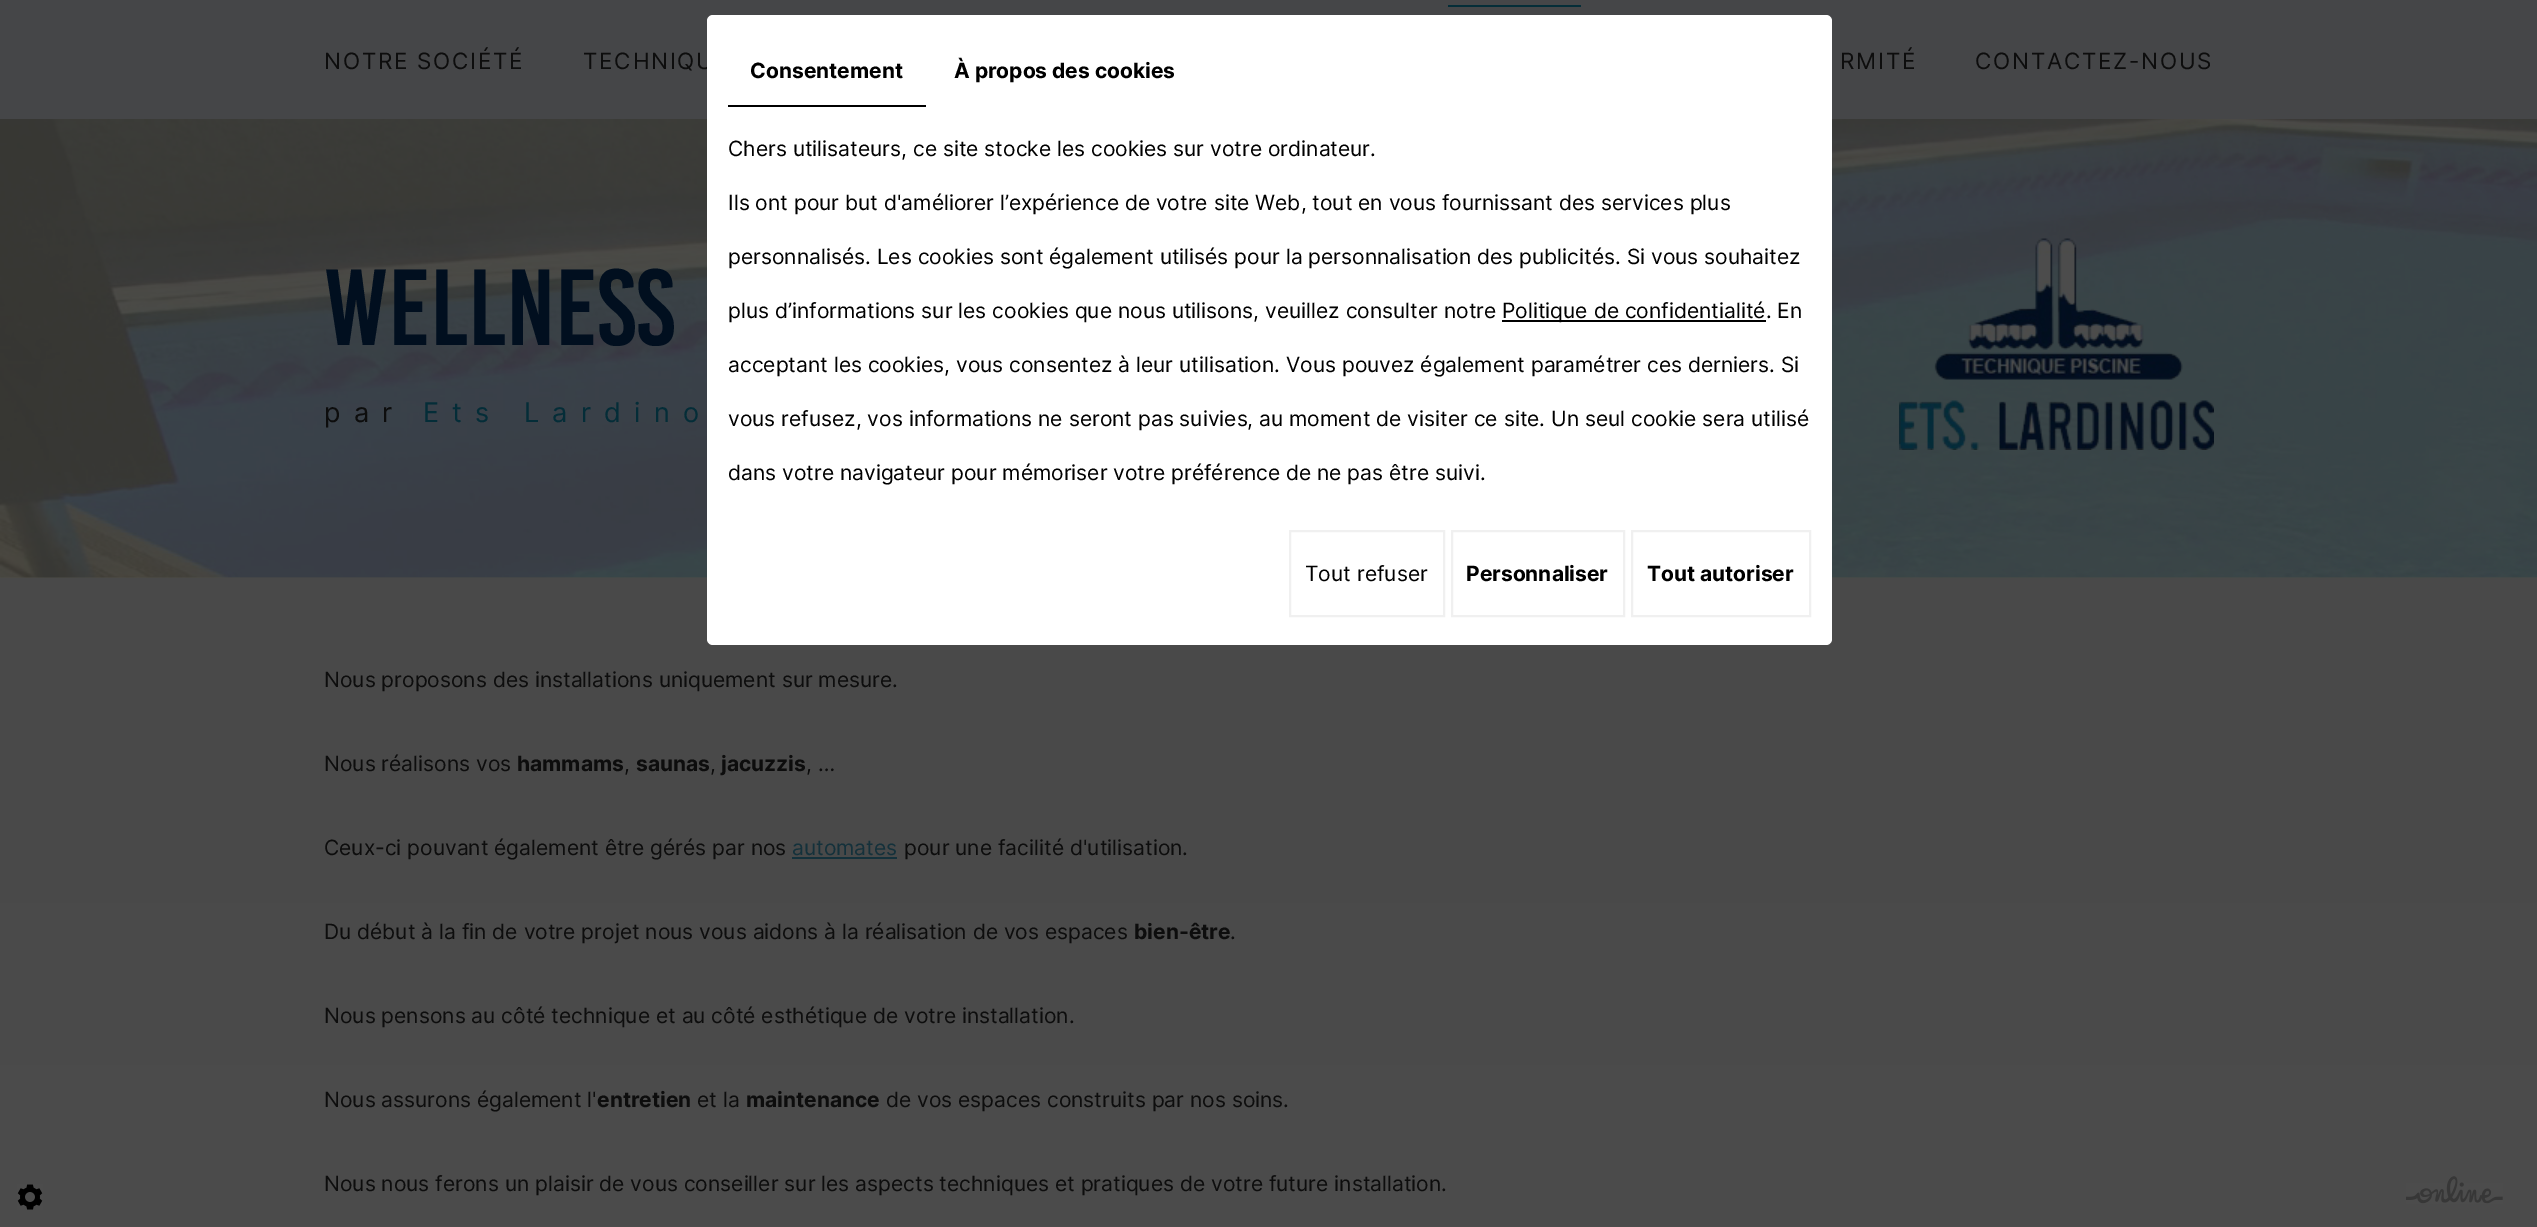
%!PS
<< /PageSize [2537 1227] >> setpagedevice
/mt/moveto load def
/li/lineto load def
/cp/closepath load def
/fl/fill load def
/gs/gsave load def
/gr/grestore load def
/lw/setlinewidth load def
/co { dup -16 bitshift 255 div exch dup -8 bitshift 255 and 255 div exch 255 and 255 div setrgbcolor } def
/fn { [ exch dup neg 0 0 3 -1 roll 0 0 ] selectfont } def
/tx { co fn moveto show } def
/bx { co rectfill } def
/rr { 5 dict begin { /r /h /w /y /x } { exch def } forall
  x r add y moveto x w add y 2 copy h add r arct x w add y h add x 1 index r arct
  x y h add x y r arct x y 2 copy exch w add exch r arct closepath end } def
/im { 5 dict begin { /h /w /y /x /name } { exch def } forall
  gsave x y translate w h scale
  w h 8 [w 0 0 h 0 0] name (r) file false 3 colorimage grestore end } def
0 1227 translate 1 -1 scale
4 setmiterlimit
0 0 2537 1227 16#FFFFFF bx
0 0 2537 119 16#454648 bx
1448 5 133 2 16#042D38 bx
gs 0 578 mt 2537 578 li 2537 1227 li 0 1227 li cp clip newpath
<< /ShadingType 2 /ColorSpace /DeviceRGB /Coords [1269 118 1269 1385] /Extend [true true] /Function << /FunctionType 2 /Domain [0 1] /C0 [.275 .275 .275] /C1 [.302 .302 .302] /N 1 >> >> shfill gr
0 119 2537 459 16#4D4D47 bx
(media/1.raw) 0 119 2537 459 im
(media/2.raw) 1899 238 315 212 im
792 857 105 2 16#14313B bx
(media/3.raw) 17 1184 26 26 im
(media/4.raw) 2406 1176 97 28 im
/Inter-Regular 22.5 fn
16#0D0D0D co
324 69 mt 1.75 0 (NOTRE SOCIÉTÉ) ashow
583 69 mt 1.75 0 (TECHNIQU) ashow
1840 69 mt 1.75 0 (RMITÉ) ashow
1975 69 mt 1.75 0 (CONTACTEZ-NOUS) ashow
(Wellness) 324 345 /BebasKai-Regular 108 16#010F1F tx
/Inter-Regular 27 fn
16#0D0D0D co
324 422 mt 13.25 0 (par) ashow
16#042D38 co
423 422 mt 13.25 0 (Ets Lardino) ashow
(Nous proposons des installations uniquement sur mesure.) 324 687 /Inter-Regular 21 16#0D0D0D tx
(Nous réalisons vos) 324 771 /Inter-Regular 21 16#0D0D0D tx
(hammams) 517 771 /Inter-Bold 21 16#0D0D0D tx
(,) 624 771 /Inter-Regular 21 16#0D0D0D tx
(saunas) 636 771 /Inter-Bold 21 16#0D0D0D tx
(,) 710 771 /Inter-Regular 21 16#0D0D0D tx
(jacuzzis) 721 771 /Inter-Bold 21 16#0D0D0D tx
(, …) 806 771 /Inter-Regular 21 16#0D0D0D tx
(Ceux-ci pouvant également être gérés par nos) 324 855 /Inter-Regular 21 16#0D0D0D tx
(automates) 792 855 /Inter-Regular 21 16#14313B tx
(pour une facilité d'utilisation.) 904 855 /Inter-Regular 21 16#0D0D0D tx
(Du début à la fin de votre projet nous vous aidons à la réalisation de vos espaces) 324 939 /Inter-Regular 21 16#0D0D0D tx
(bien-être) 1134 939 /Inter-Bold 21 16#0D0D0D tx
(.) 1230 939 /Inter-Regular 21 16#0D0D0D tx
(Nous pensons au côté technique et au côté esthétique de votre installation.) 324 1023 /Inter-Regular 21 16#0D0D0D tx
(Nous assurons également l') 324 1107 /Inter-Regular 21 16#0D0D0D tx
(entretien) 597 1107 /Inter-Bold 21 16#0D0D0D tx
(et la) 697 1107 /Inter-Regular 21 16#0D0D0D tx
(maintenance) 746 1107 /Inter-Bold 21 16#0D0D0D tx
(de vos espaces construits par nos soins.) 886 1107 /Inter-Regular 21 16#0D0D0D tx
(Nous nous ferons un plaisir de vous conseiller sur les aspects techniques et pratiques de votre future installation.) 324 1191 /Inter-Regular 21 16#0D0D0D tx
16#FFFFFF co
707 15 1125 630 6 rr fl
728 105 198 2 16#000000 bx
(Consentement) 750 78 /Inter-Bold 21 16#000000 tx
(À propos des cookies) 954 78 /Inter-Bold 21 16#000000 tx
(Chers utilisateurs, ce site stocke les cookies sur votre ordinateur.) 728 156 /Inter-Regular 21 16#000000 tx
(Ils ont pour but d'améliorer l’expérience de votre site Web, tout en vous fournissant des services plus) 728 210 /Inter-Regular 21 16#000000 tx
(personnalisés. Les cookies sont également utilisés pour la personnalisation des publicités. Si vous souhaitez) 728 264 /Inter-Regular 21 16#000000 tx
(plus d’informations sur les cookies que nous utilisons, veuillez consulter notre) 728 318 /Inter-Regular 21 16#000000 tx
1502 320 264 2 16#000000 bx
(Politique de confidentialité. En) 1502 318 /Inter-Regular 21 16#000000 tx
(acceptant les cookies, vous consentez à leur utilisation. Vous pouvez également paramétrer ces derniers. Si) 728 372 /Inter-Regular 21 16#000000 tx
(vous refusez, vos informations ne seront pas suivies, au moment de visiter ce site. Un seul cookie sera utilisé) 728 426 /Inter-Regular 21 16#000000 tx
(dans votre navigateur pour mémoriser votre préférence de ne pas être suivi.) 728 480 /Inter-Regular 21 16#000000 tx
16#F0F0F0 co
2 lw
1290 531 154 85 rectstroke
(Tout refuser) 1305 581 /Inter-Regular 21 16#000000 tx
16#F0F0F0 co
1452 531 172 85 rectstroke
(Personnaliser) 1466 581 /Inter-Bold 21 16#000000 tx
16#F0F0F0 co
1632 531 178 85 rectstroke
(Tout autoriser) 1647 581 /Inter-Bold 21 16#000000 tx
showpage
